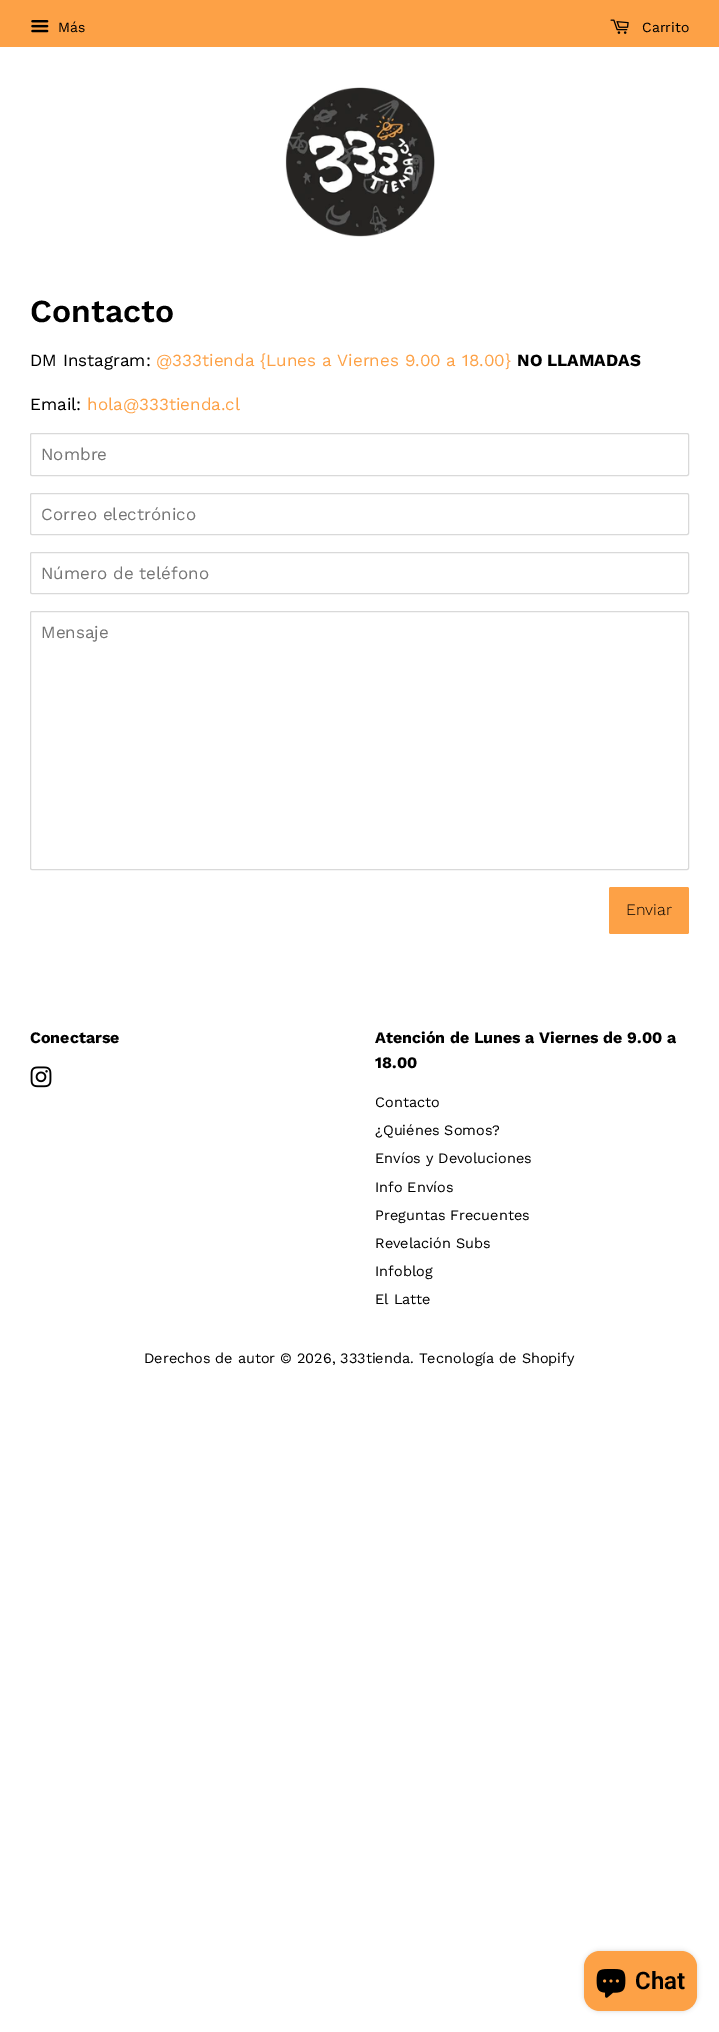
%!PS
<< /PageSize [719 2032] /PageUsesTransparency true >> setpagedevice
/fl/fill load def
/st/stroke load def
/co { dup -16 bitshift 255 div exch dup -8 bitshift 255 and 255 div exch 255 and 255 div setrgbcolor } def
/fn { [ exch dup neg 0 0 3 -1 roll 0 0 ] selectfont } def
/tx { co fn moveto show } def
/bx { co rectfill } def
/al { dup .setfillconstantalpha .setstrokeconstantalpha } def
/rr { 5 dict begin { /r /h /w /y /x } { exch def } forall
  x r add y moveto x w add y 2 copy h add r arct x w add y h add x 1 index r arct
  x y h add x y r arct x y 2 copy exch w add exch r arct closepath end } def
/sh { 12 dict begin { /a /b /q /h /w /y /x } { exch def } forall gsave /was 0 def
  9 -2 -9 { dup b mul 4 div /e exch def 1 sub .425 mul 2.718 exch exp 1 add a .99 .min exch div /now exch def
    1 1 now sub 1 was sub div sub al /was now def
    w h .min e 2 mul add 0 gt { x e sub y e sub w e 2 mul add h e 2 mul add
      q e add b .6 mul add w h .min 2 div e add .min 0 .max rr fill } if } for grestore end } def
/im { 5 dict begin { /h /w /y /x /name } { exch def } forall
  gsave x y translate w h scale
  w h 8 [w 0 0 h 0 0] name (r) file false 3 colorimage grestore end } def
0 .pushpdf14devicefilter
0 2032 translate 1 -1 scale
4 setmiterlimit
0 0 719 2032 16#FFFFFF bx
0 0 719 47 16#FDA146 bx
(media/1.raw) 31 20 18 13 im
(media/2.raw) 610 19 19 15 im
(media/3.raw) 285 87 150 150 im
16#D9D9D9 co
30.5 433.5 658 42 1.5 rr st
30.5 493.5 658 41 1.5 rr st
30.5 552.5 658 41 1.5 rr st
30.5 611.5 658 258 1.5 rr st
16#FDA146 co
609 887 80 47 2 rr fl
(media/4.raw) 30 1066 22 22 im
16#000000 co
584 1951 113 60 16 2.5 .15 sh
16#FDA146 co
584 1951 113 60 16 rr fl
(media/5.raw) 596 1969 30 29 im
(Más) 58 32 /WorkSans-Regular 14 16#000000 tx
(Carrito) 642 32 /WorkSans-Regular 14 16#000000 tx
(Contacto) 30 322 /WorkSans-SemiBold 32 16#000000 tx
(DM Instagram:) 30 366 /WorkSans-Regular 17 16#000000 tx
(@333tienda {Lunes a Viernes 9.00 a 18.00}) 156 366 /WorkSans-Regular 17 16#FDA146 tx
(NO LLAMADAS) 517 366 /WorkSans-Bold 17 16#000000 tx
(Email:) 30 410 /WorkSans-Regular 17 16#000000 tx
(hola@333tienda.cl) 87 410 /WorkSans-Regular 17 16#FDA146 tx
(Nombre) 41 460 /WorkSans-Regular 17 16#757575 tx
(Correo electrónico) 41 520 /WorkSans-Regular 17 16#757575 tx
(Número de teléfono) 41 579 /WorkSans-Regular 17 16#757575 tx
(Mensaje) 41 638 /WorkSans-Regular 17 16#757575 tx
(Enviar) 626 915 /WorkSans-Light 16 16#000000 tx
(Conectarse) 30 1043 /WorkSans-Bold 16 16#000000 tx
(Atención de Lunes a Viernes de 9.00 a) 375 1043 /WorkSans-Bold 16 16#000000 tx
(18.00) 375 1068 /WorkSans-Bold 16 16#000000 tx
(Contacto) 375 1107 /WorkSans-Regular 14.45 16#000000 tx
(¿Quiénes Somos?) 375 1135 /WorkSans-Regular 14.45 16#000000 tx
(Envíos y Devoluciones) 375 1163 /WorkSans-Regular 14.45 16#000000 tx
(Info Envíos) 375 1192 /WorkSans-Regular 14.45 16#000000 tx
(Preguntas Frecuentes) 375 1220 /WorkSans-Regular 14.45 16#000000 tx
(Revelación Subs) 375 1248 /WorkSans-Regular 14.45 16#000000 tx
(Infoblog) 375 1276 /WorkSans-Regular 14.45 16#000000 tx
(El Latte) 375 1304 /WorkSans-Regular 14.45 16#000000 tx
(Derechos de autor © 2026, 333tienda. Tecnología de Shopify) 144 1363 /WorkSans-Regular 14.45 16#000000 tx
(Chat) 635 1989 /Roboto-SemiBold 24 16#000000 tx
.poppdf14devicefilter showpage
